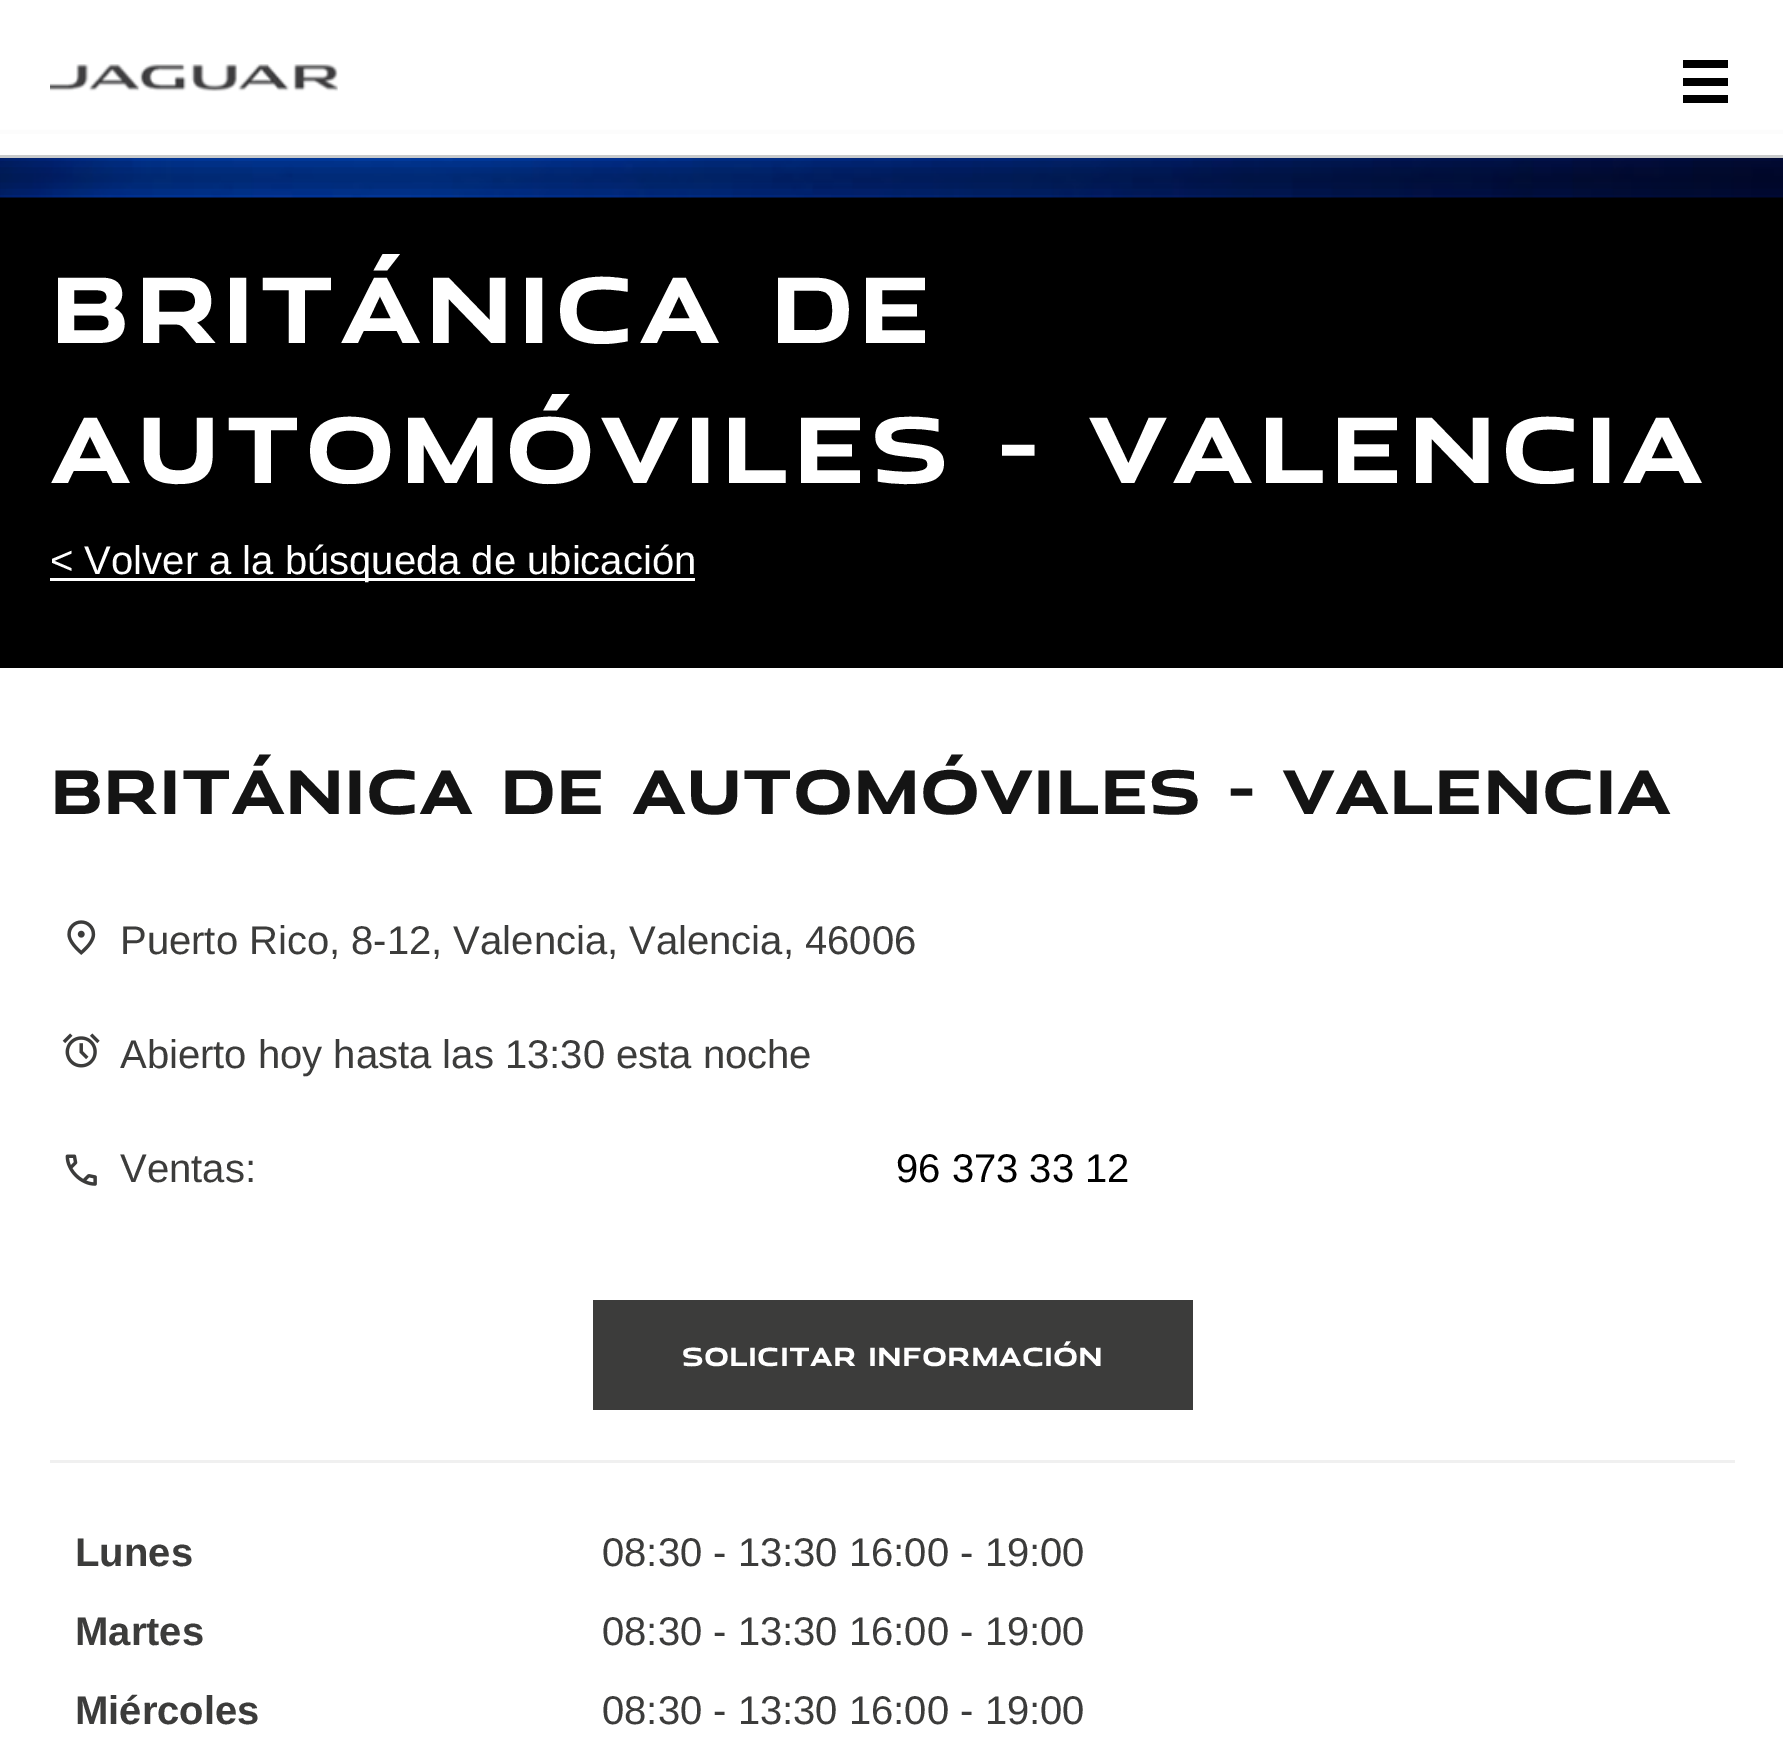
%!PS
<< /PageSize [1783 1763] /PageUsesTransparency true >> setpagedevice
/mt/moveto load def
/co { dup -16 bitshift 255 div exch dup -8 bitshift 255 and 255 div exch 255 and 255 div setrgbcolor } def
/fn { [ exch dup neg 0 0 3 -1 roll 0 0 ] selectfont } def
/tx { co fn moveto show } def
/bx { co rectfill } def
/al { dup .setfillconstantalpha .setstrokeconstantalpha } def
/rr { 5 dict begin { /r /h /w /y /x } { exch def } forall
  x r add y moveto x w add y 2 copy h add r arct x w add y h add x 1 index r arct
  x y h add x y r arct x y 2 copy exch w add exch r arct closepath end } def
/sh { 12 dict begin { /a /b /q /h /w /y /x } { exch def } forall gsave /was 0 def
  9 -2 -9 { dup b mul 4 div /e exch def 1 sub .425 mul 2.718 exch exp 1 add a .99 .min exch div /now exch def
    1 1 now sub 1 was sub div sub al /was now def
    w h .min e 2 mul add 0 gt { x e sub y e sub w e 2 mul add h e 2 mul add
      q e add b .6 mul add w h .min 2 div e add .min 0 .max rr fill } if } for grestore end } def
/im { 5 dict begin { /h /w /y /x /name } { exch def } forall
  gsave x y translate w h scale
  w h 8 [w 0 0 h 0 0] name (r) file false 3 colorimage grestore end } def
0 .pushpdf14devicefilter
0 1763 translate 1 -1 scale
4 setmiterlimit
0 0 1783 1763 16#FFFFFF bx
0 197 1783 471 16#000000 bx
(media/2.raw) 0 158 1783 40 im
-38 158 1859 40 0 12.5 .4 sh
0 134 1783 21 16#FFFFFF bx
0 155 1783 3 16#C8CACB bx
(media/1.raw) 50 64 288 28 im
1683 95 45 8 16#000000 bx
1683 60 45 8 16#000000 bx
1683 78 45 8 16#000000 bx
50 578 645 3 16#FFFFFF bx
(media/3.raw) 67 920 29 35 im
(media/4.raw) 62 1033 38 35 im
(media/5.raw) 65 1154 32 32 im
593 1300 600 110 16#3C3C3B bx
50 1460 1685 3 16#F0F0F0 bx
/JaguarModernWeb-Bold 90 fn
16#FFFFFF co
50 343 mt 4.5 0 (BRITÁNICA DE) ashow
50 483 mt 4.5 0 (AUTOMÓVILES - VALENCIA) ashow
(< Volver a la búsqueda de ubicación) 50 574 /LiberationSans-Regular 40 16#FFFFFF tx
(BRITÁNICA DE AUTOMÓVILES - VALENCIA) 50 814 /JaguarModernWeb-Bold 60 16#141414 tx
(Puerto Rico, 8-12, Valencia, Valencia, 46006) 120 954 /LiberationSans-Regular 40 16#3C3C3B tx
(Abierto hoy hasta las 13:30 esta noche) 120 1068 /LiberationSans-Regular 40 16#3C3C3B tx
(Ventas:) 120 1182 /LiberationSans-Regular 40 16#3C3C3B tx
(96 373 33 12) 896 1182 /LiberationSans-Regular 40 16#000000 tx
/JaguarModernWeb-Bold 25 fn
16#FFFFFF co
682 1366 mt .25 0 (SOLICITAR INFORMACIÓN) ashow
(Lunes) 75 1566 /LiberationSans-Bold 40 16#3C3C3B tx
(08:30 - 13:30 16:00 - 19:00) 602 1566 /LiberationSans-Regular 40 16#3C3C3B tx
(Martes) 75 1645 /LiberationSans-Bold 40 16#3C3C3B tx
(08:30 - 13:30 16:00 - 19:00) 602 1645 /LiberationSans-Regular 40 16#3C3C3B tx
(Miércoles) 75 1724 /LiberationSans-Bold 40 16#3C3C3B tx
(08:30 - 13:30 16:00 - 19:00) 602 1724 /LiberationSans-Regular 40 16#3C3C3B tx
.poppdf14devicefilter showpage
